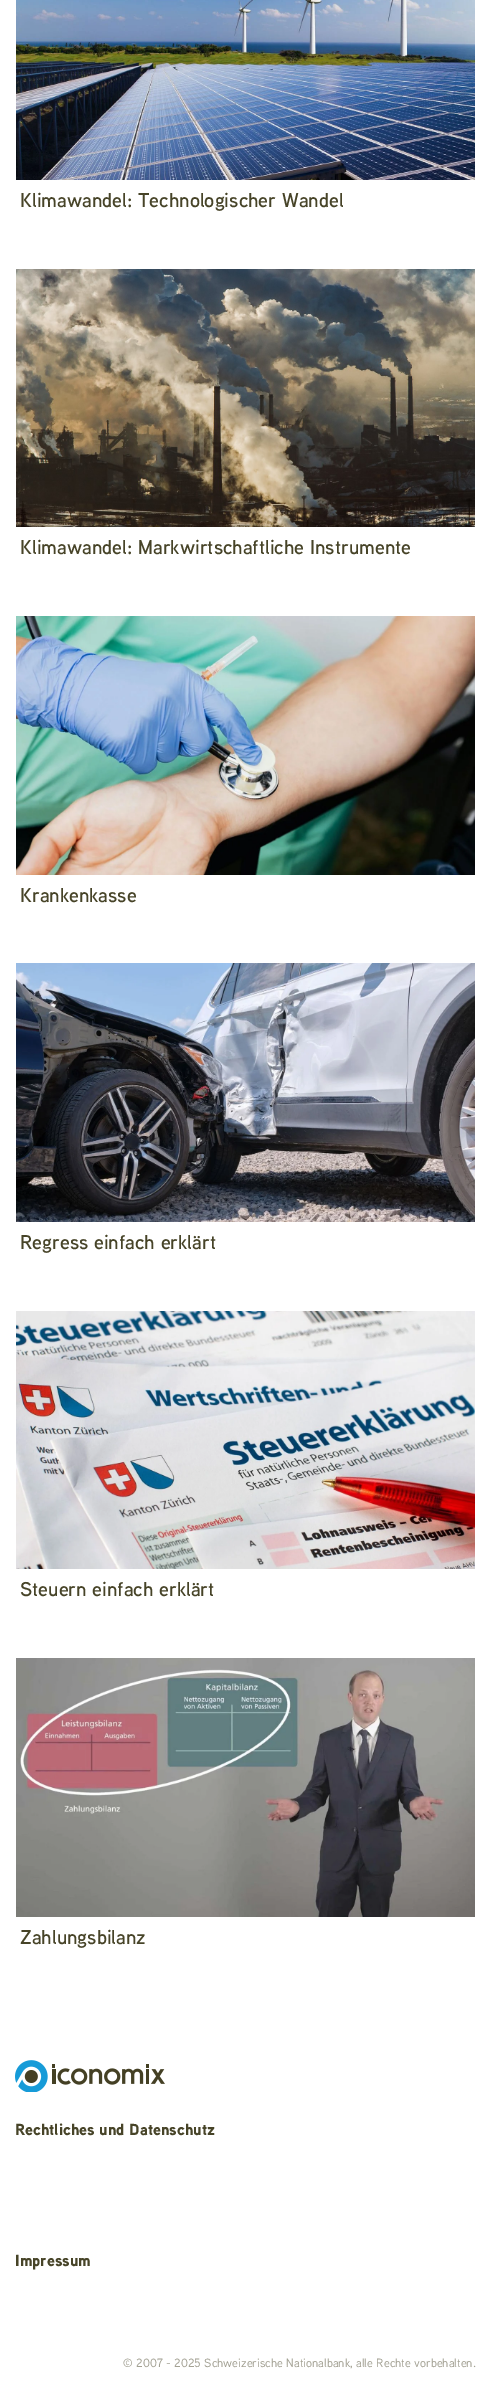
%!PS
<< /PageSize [491 2407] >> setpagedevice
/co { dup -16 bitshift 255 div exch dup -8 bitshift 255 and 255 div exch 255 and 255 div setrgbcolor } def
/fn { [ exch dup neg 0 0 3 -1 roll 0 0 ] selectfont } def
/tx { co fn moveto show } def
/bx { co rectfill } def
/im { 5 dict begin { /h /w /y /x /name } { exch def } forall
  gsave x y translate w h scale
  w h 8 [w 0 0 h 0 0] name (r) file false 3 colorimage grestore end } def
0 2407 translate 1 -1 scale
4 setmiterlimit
0 0 491 2407 16#FFFFFF bx
(media/1.raw) 16 0 459 180 im
(media/2.raw) 16 269 459 258 im
(media/3.raw) 16 616 459 259 im
(media/4.raw) 16 963 459 259 im
(media/5.raw) 16 1311 459 258 im
(media/6.raw) 16 1658 459 259 im
(media/7.raw) 15 2060 150 32 im
(Klimawandel: Technologischer Wandel) 20 207 /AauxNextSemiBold-Regular 20 16#474428 tx
(Klimawandel: Markwirtschaftliche Instrumente) 20 554 /AauxNextSemiBold-Regular 20 16#474428 tx
(Krankenkasse) 20 902 /AauxNextSemiBold-Regular 20 16#474428 tx
(Regress einfach erklärt) 20 1249 /AauxNextSemiBold-Regular 20 16#474428 tx
(Steuern einfach erklärt) 20 1596 /AauxNextSemiBold-Regular 20 16#474428 tx
(Zahlungsbilanz) 20 1944 /AauxNextSemiBold-Regular 20 16#474428 tx
(Rechtliches und Datenschutz) 15 2135 /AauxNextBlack-Regular 16 16#474428 tx
(Impressum) 15 2266 /AauxNextBlack-Regular 16 16#474428 tx
(© 2007 - 2025 Schweizerische Nationalbank, alle Rechte vorbehalten.) 123 2367 /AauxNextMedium-Regular 12 16#A3A193 tx
showpage
